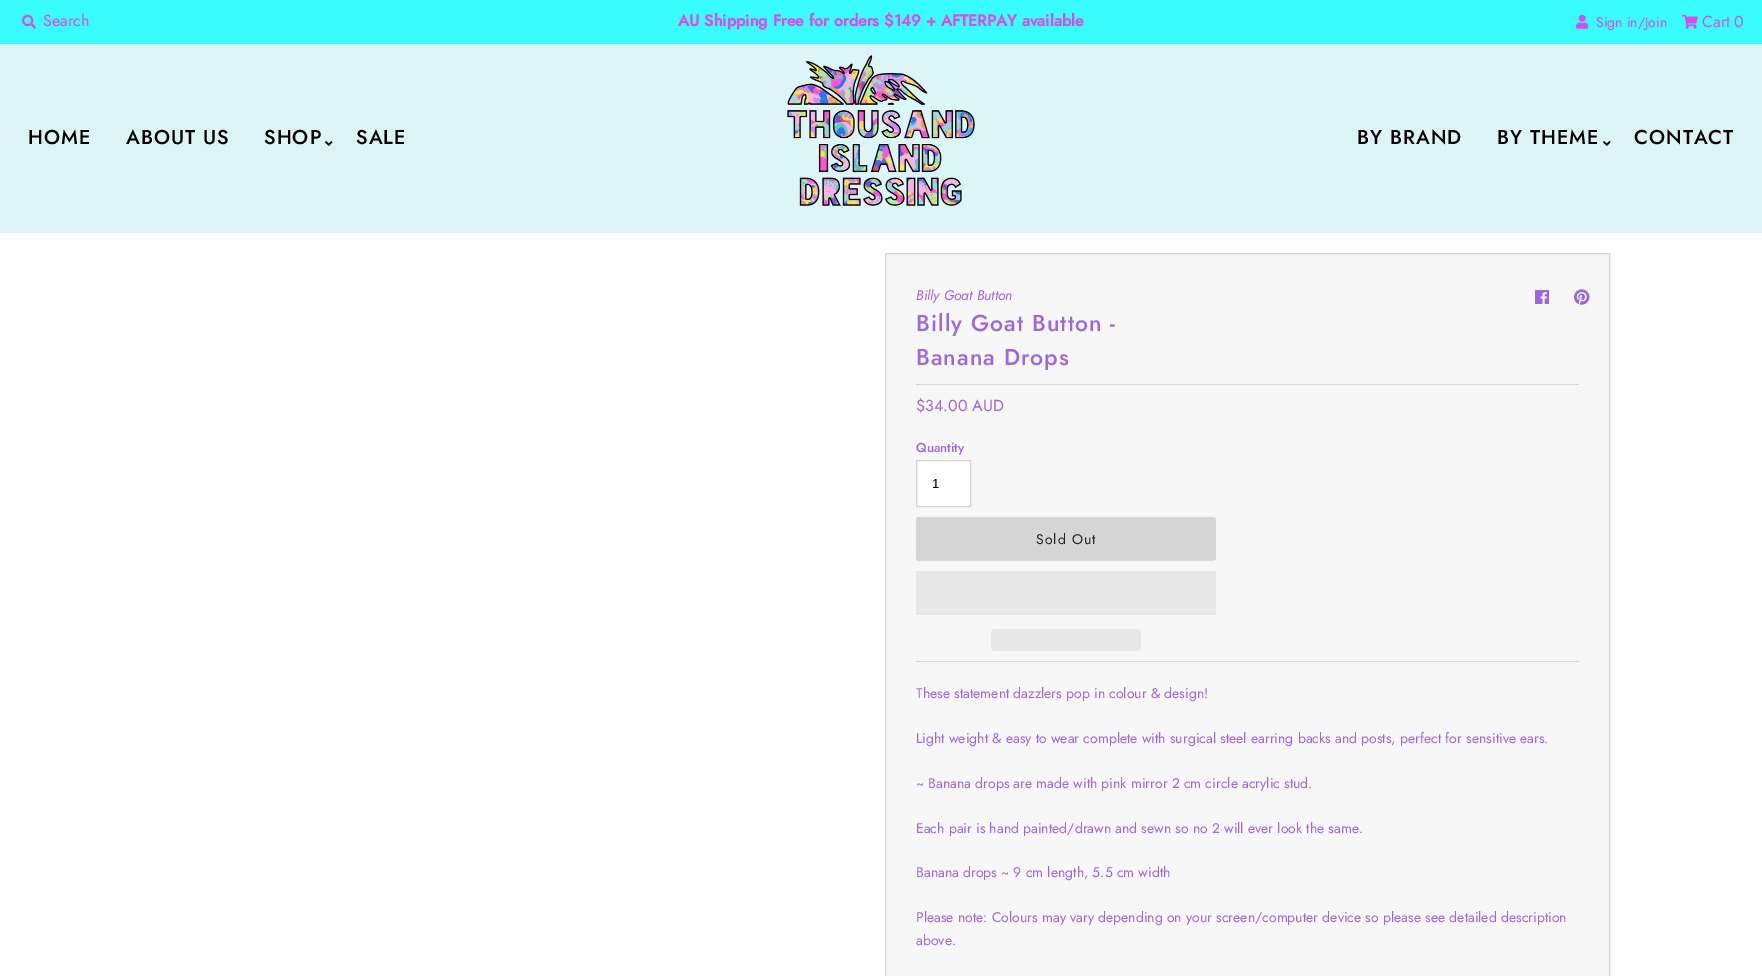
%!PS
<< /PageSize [1762 976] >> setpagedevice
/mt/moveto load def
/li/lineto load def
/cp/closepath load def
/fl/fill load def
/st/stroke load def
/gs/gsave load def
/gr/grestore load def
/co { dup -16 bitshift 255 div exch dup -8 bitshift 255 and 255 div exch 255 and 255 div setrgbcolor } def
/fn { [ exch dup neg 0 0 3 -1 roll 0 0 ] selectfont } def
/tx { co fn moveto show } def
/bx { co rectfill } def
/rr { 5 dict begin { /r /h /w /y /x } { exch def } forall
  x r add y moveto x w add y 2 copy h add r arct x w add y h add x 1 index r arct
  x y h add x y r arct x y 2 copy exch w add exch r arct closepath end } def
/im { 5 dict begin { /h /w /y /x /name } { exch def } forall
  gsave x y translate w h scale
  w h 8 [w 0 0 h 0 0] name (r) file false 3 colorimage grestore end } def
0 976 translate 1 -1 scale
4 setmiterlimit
0 0 1762 976 16#FFFFFF bx
0 0 1762 44 16#39FCFC bx
(media/1.raw) 22 14 14 15 im
(media/2.raw) 1576 14 13 15 im
(media/3.raw) 1682 14 16 15 im
0 44 1762 189 16#DCF4F6 bx
(media/4.raw) 325 141 8 5 im
(media/5.raw) 786 54 189 153 im
(media/4.raw) 1603 141 8 5 im
16#F7F7F7 co
885.5 253.5 mt 1609.5 253.5 li 1609.5 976.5 li 885.5 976.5 li cp gs fl gr
16#D5D5D5 co
st
(media/6.raw) 1535 290 14 14 im
(media/7.raw) 1574 289 16 16 im
916 384 663 1 16#D5D5D5 bx
916 661 663 1 16#D5D5D5 bx
16#FFFFFF co
916.5 460.5 mt 970.5 460.5 li 970.5 506.5 li 916.5 506.5 li cp gs fl gr
16#D5D5D5 co
st
916 517 300 44 3 rr fl
916 571 300 44 16#E8E8E8 bx
991 629 150 22 4 rr fl
893 254 709 1 16#DCF4F6 bx
(Search) 43 26 /Jost-Regular 16 16#D94BEC tx
(AU Shipping Free for orders $149 + AFTERPAY available) 678 26 /Jost-Bold 16 16#D94BEC tx
(Sign in/Join) 1596 27 /Jost-Regular 14 16#D94BEC tx
(Cart) 1702 27 /Jost-Regular 16 16#D94BEC tx
(0) 1734 27 /Jost-Regular 16 16#D94BEC tx
/Jost-Medium 20 fn
16#000000 co
28 144 mt 1 0 (HOME) ashow
126 144 mt 1 0 (ABOUT US) ashow
264 144 mt 1 0 (SHOP) ashow
356 144 mt 1 0 (SALE) ashow
1357 144 mt 1 0 (BY BRAND) ashow
1497 144 mt 1 0 (BY THEME) ashow
1634 144 mt 1 0 (CONTACT) ashow
(Billy Goat Button) 916 300 /Jost-Italic 14 16#9B67E2 tx
/Jost-Medium 23 fn
916 331 mt 1 0 (Billy Goat Button -) ashow
916 365 mt 1 0 (Banana Drops) ashow
($34.00 AUD) 916 411 /Jost-Regular 16 16#9B67E2 tx
(Quantity) 916 452 /Jost-Medium 13 16#9B67E2 tx
(1) 932 488 /LiberationSans-Regular 13 16#000000 tx
/Jost-Regular 14 fn
16#242424 co
1036 544 mt 1 0 (Sold Out) ashow
(These statement dazzlers pop in colour & design!) 916 698 /Jost-Regular 14 16#9B67E2 tx
(Light weight & easy to wear complete with surgical steel earring backs and posts, perfect for sensitive ears.) 916 743 /Jost-Regular 14 16#9B67E2 tx
(~ Banana drops are made with pink mirror 2 cm circle acrylic stud.) 916 788 /Jost-Regular 14 16#9B67E2 tx
(Each pair is hand painted/drawn and sewn so no 2 will ever look the same.) 916 833 /Jost-Regular 14 16#9B67E2 tx
(Banana drops ~ 9 cm length, 5.5 cm width) 916 877 /Jost-Regular 14 16#9B67E2 tx
(Please note: Colours may vary depending on your screen/computer device so please see detailed description) 916 922 /Jost-Regular 14 16#9B67E2 tx
(above.) 916 945 /Jost-Regular 14 16#9B67E2 tx
showpage
